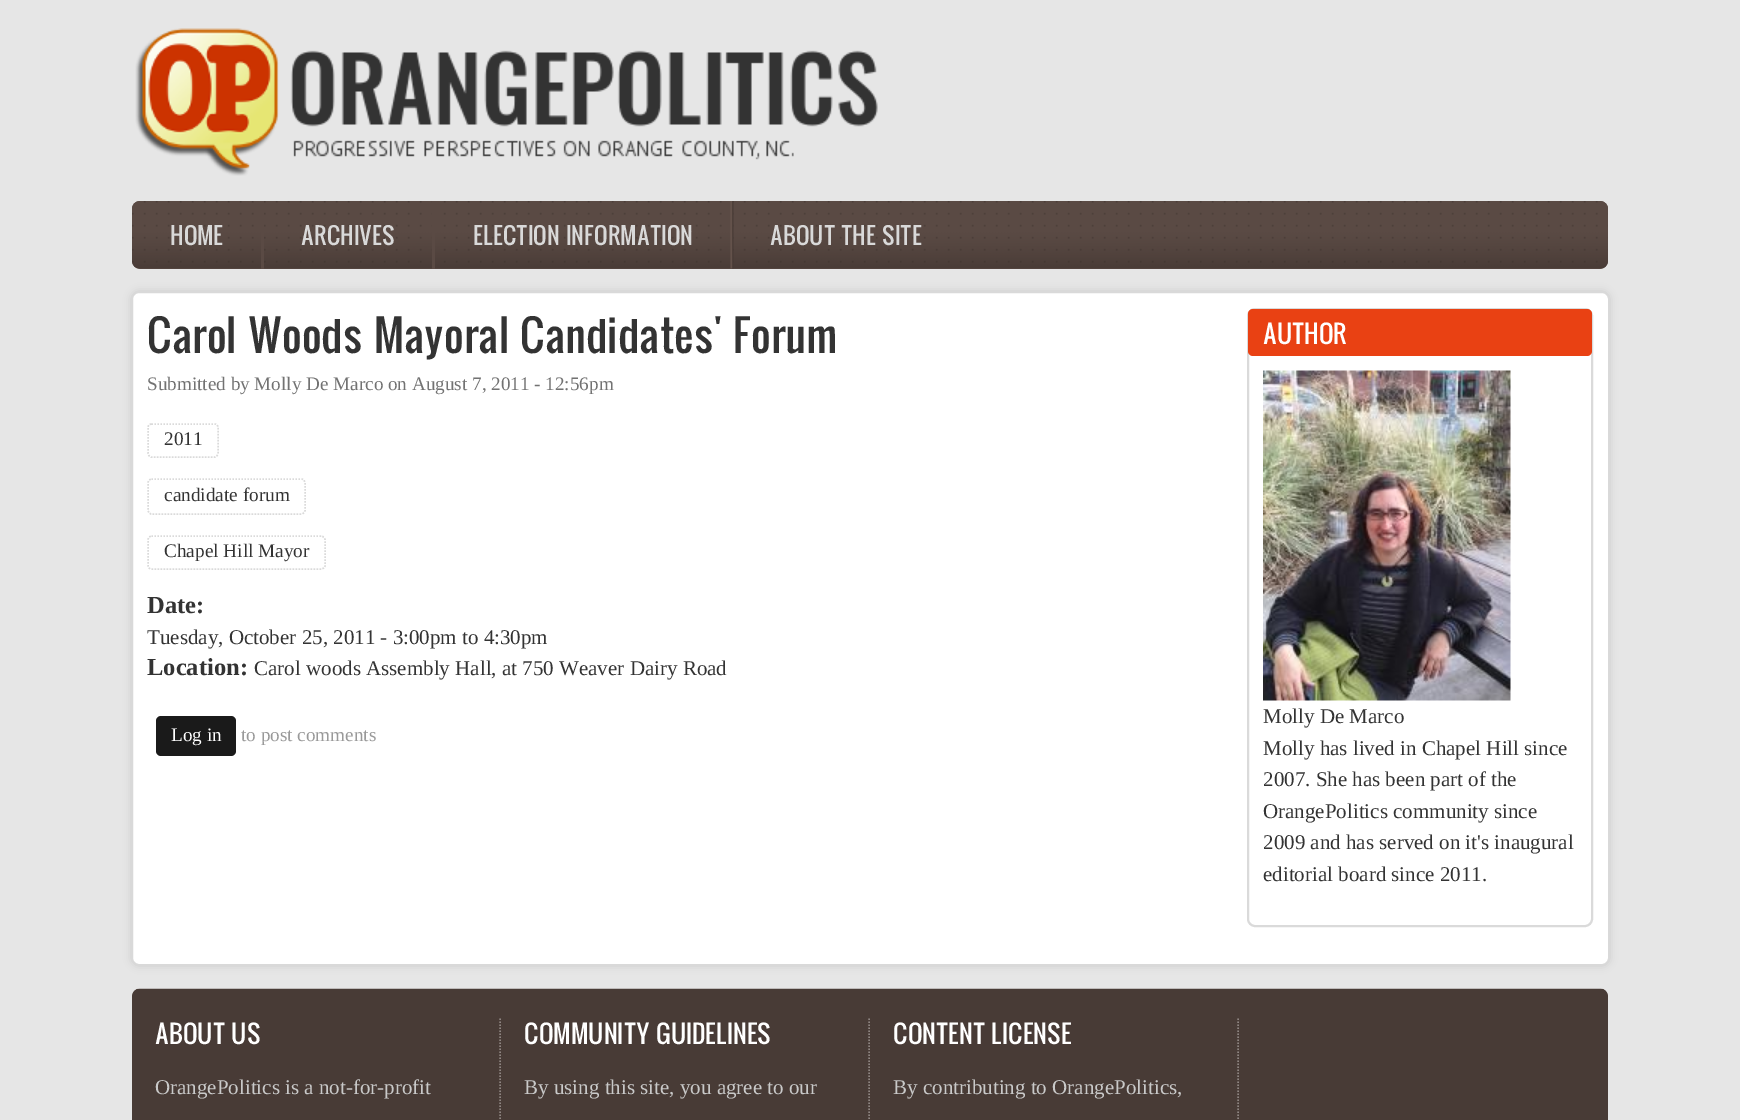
%!PS
<< /PageSize [1740 1120] /PageUsesTransparency true >> setpagedevice
/mt/moveto load def
/li/lineto load def
/ct/curveto load def
/cp/closepath load def
/fl/fill load def
/st/stroke load def
/gs/gsave load def
/gr/grestore load def
/lw/setlinewidth load def
/co { dup -16 bitshift 255 div exch dup -8 bitshift 255 and 255 div exch 255 and 255 div setrgbcolor } def
/fn { [ exch dup neg 0 0 3 -1 roll 0 0 ] selectfont } def
/tx { co fn moveto show } def
/bx { co rectfill } def
/al { dup .setfillconstantalpha .setstrokeconstantalpha } def
/rr { 5 dict begin { /r /h /w /y /x } { exch def } forall
  x r add y moveto x w add y 2 copy h add r arct x w add y h add x 1 index r arct
  x y h add x y r arct x y 2 copy exch w add exch r arct closepath end } def
/sh { 12 dict begin { /a /b /q /h /w /y /x } { exch def } forall gsave /was 0 def
  9 -2 -9 { dup b mul 4 div /e exch def 1 sub .425 mul 2.718 exch exp 1 add a .99 .min exch div /now exch def
    1 1 now sub 1 was sub div sub al /was now def
    w h .min e 2 mul add 0 gt { x e sub y e sub w e 2 mul add h e 2 mul add
      q e add b .6 mul add w h .min 2 div e add .min 0 .max rr fill } if } for grestore end } def
/im { 5 dict begin { /h /w /y /x /name } { exch def } forall
  gsave x y translate w h scale
  w h 8 [w 0 0 h 0 0] name (r) file false 3 colorimage grestore end } def
0 .pushpdf14devicefilter
0 1120 translate 1 -1 scale
4 setmiterlimit
0 0 1740 1120 16#E6E6E6 bx
(media/1.raw) 135 28 743 148 im
16#564640 co
132 201 1476 68 8 rr fl
(media/2.raw) 132 201 1476 68 im
261 201 3 68 16#5A4A44 bx
432 201 3 68 16#5A4A44 bx
(media/3.raw) 730 201 4 68 im
16#CCCCCC co
131 291 1479 675 8 4 1 sh
16#FFFFFF co
132 292 1477 673 7 rr gs fl gr
16#D9D9D9 co
2 lw
st
16#DADADA co
1.5 lw
[1.5 1.5] 0 setdash
151.5 424 mt 214.5 424 li 216.5 424 218 425.5 218 427.5 ct 218 453 li 218 455 216.5 457 214.5 457 ct 151.5 457 li 149.5 457 148 455 148 453 ct 148 427.5 li 148 425.5 149.5 424 151.5 424 ct cp st
151.5 479 mt 301.5 479 li 303.5 479 305 481 305 483 ct 305 510 li 305 512 303.5 514 301.5 514 ct 151.5 514 li 149.5 514 148 512 148 510 ct 148 483 li 148 481 149.5 479 151.5 479 ct cp st
151.5 536 mt 321 536 li 323 536 325 538 325 540 ct 325 565.5 li 325 567.5 323 569 321 569 ct 151.5 569 li 149.5 569 148 567.5 148 565.5 ct 148 540 li 148 538 149.5 536 151.5 536 ct cp st
16#1A1A1A co
156 716 80 40 5 rr fl
16#DADADA co
2 lw
[] 0 setdash
1248 309 344 617 7 rr st
16#E94113 co
1248 309 344 47 5 rr fl
(media/4.raw) 1263 370 248 331 im
(media/5.raw) 132 988 1476 132 im
16#8F8683 co
1.5 lw
[1.5 1.5] 0 setdash
500 1018.5 mt 500 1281 li st
869 1018.5 mt 869 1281 li st
1238 1018.5 mt 1238 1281 li st
(HOME) 170 245 /Oswald-Regular 22.75 16#D9D9D9 tx
(ARCHIVES) 301 245 /Oswald-Regular 22.75 16#D9D9D9 tx
(ELECTION INFORMATION) 473 245 /Oswald-Regular 22.75 16#D9D9D9 tx
(ABOUT THE SITE) 770 245 /Oswald-Regular 22.75 16#D9D9D9 tx
(Carol Woods Mayoral Candidates' Forum) 147 353 /Oswald-Regular 42 16#333333 tx
(Submitted by Molly De Marco on August 7, 2011 - 12:56pm) 147 390 /LiberationSerif-Regular 19.15 16#727272 tx
(2011) 164 445 /LiberationSerif-Regular 19.25 16#333333 tx
(candidate forum) 164 501 /LiberationSerif-Regular 19.25 16#333333 tx
(Chapel Hill Mayor) 164 557 /LiberationSerif-Regular 19.25 16#333333 tx
(Date:) 147 613 /LiberationSerif-Bold 24.5 16#333333 tx
(Tuesday, October 25, 2011 - 3:00pm to 4:30pm) 147 644 /LiberationSerif-Regular 21 16#333333 tx
(Location:) 147 675 /LiberationSerif-Bold 24.5 16#333333 tx
(Carol woods Assembly Hall, at 750 Weaver Dairy Road) 254 675 /LiberationSerif-Regular 21 16#333333 tx
(Log in) 171 741 /LiberationSerif-Regular 19.15 16#FFFFFF tx
(to post comments) 241 741 /LiberationSerif-Regular 19.15 16#999999 tx
(AUTHOR) 1263 344 /Oswald-Regular 24.5 16#FFFFFF tx
(Molly De Marco) 1263 723 /LiberationSerif-Regular 21 16#333333 tx
(Molly has lived in Chapel Hill since) 1263 755 /LiberationSerif-Regular 21 16#333333 tx
(2007. She has been part of the) 1263 786 /LiberationSerif-Regular 21 16#333333 tx
(OrangePolitics community since) 1263 818 /LiberationSerif-Regular 21 16#333333 tx
(2009 and has served on it's inaugural) 1263 849 /LiberationSerif-Regular 21 16#333333 tx
(editorial board since 2011.) 1263 881 /LiberationSerif-Regular 21 16#333333 tx
(ABOUT US) 155 1044 /Oswald-Regular 24.5 16#FFFFFF tx
(OrangePolitics is a not-for-profit) 155 1094 /LiberationSerif-Regular 21 16#C9C9C9 tx
(COMMUNITY GUIDELINES) 524 1044 /Oswald-Regular 24.5 16#FFFFFF tx
(By using this site, you agree to our) 524 1094 /LiberationSerif-Regular 21 16#C9C9C9 tx
(CONTENT LICENSE) 893 1044 /Oswald-Regular 24.5 16#FFFFFF tx
(By contributing to OrangePolitics,) 893 1094 /LiberationSerif-Regular 21 16#C9C9C9 tx
.poppdf14devicefilter showpage
